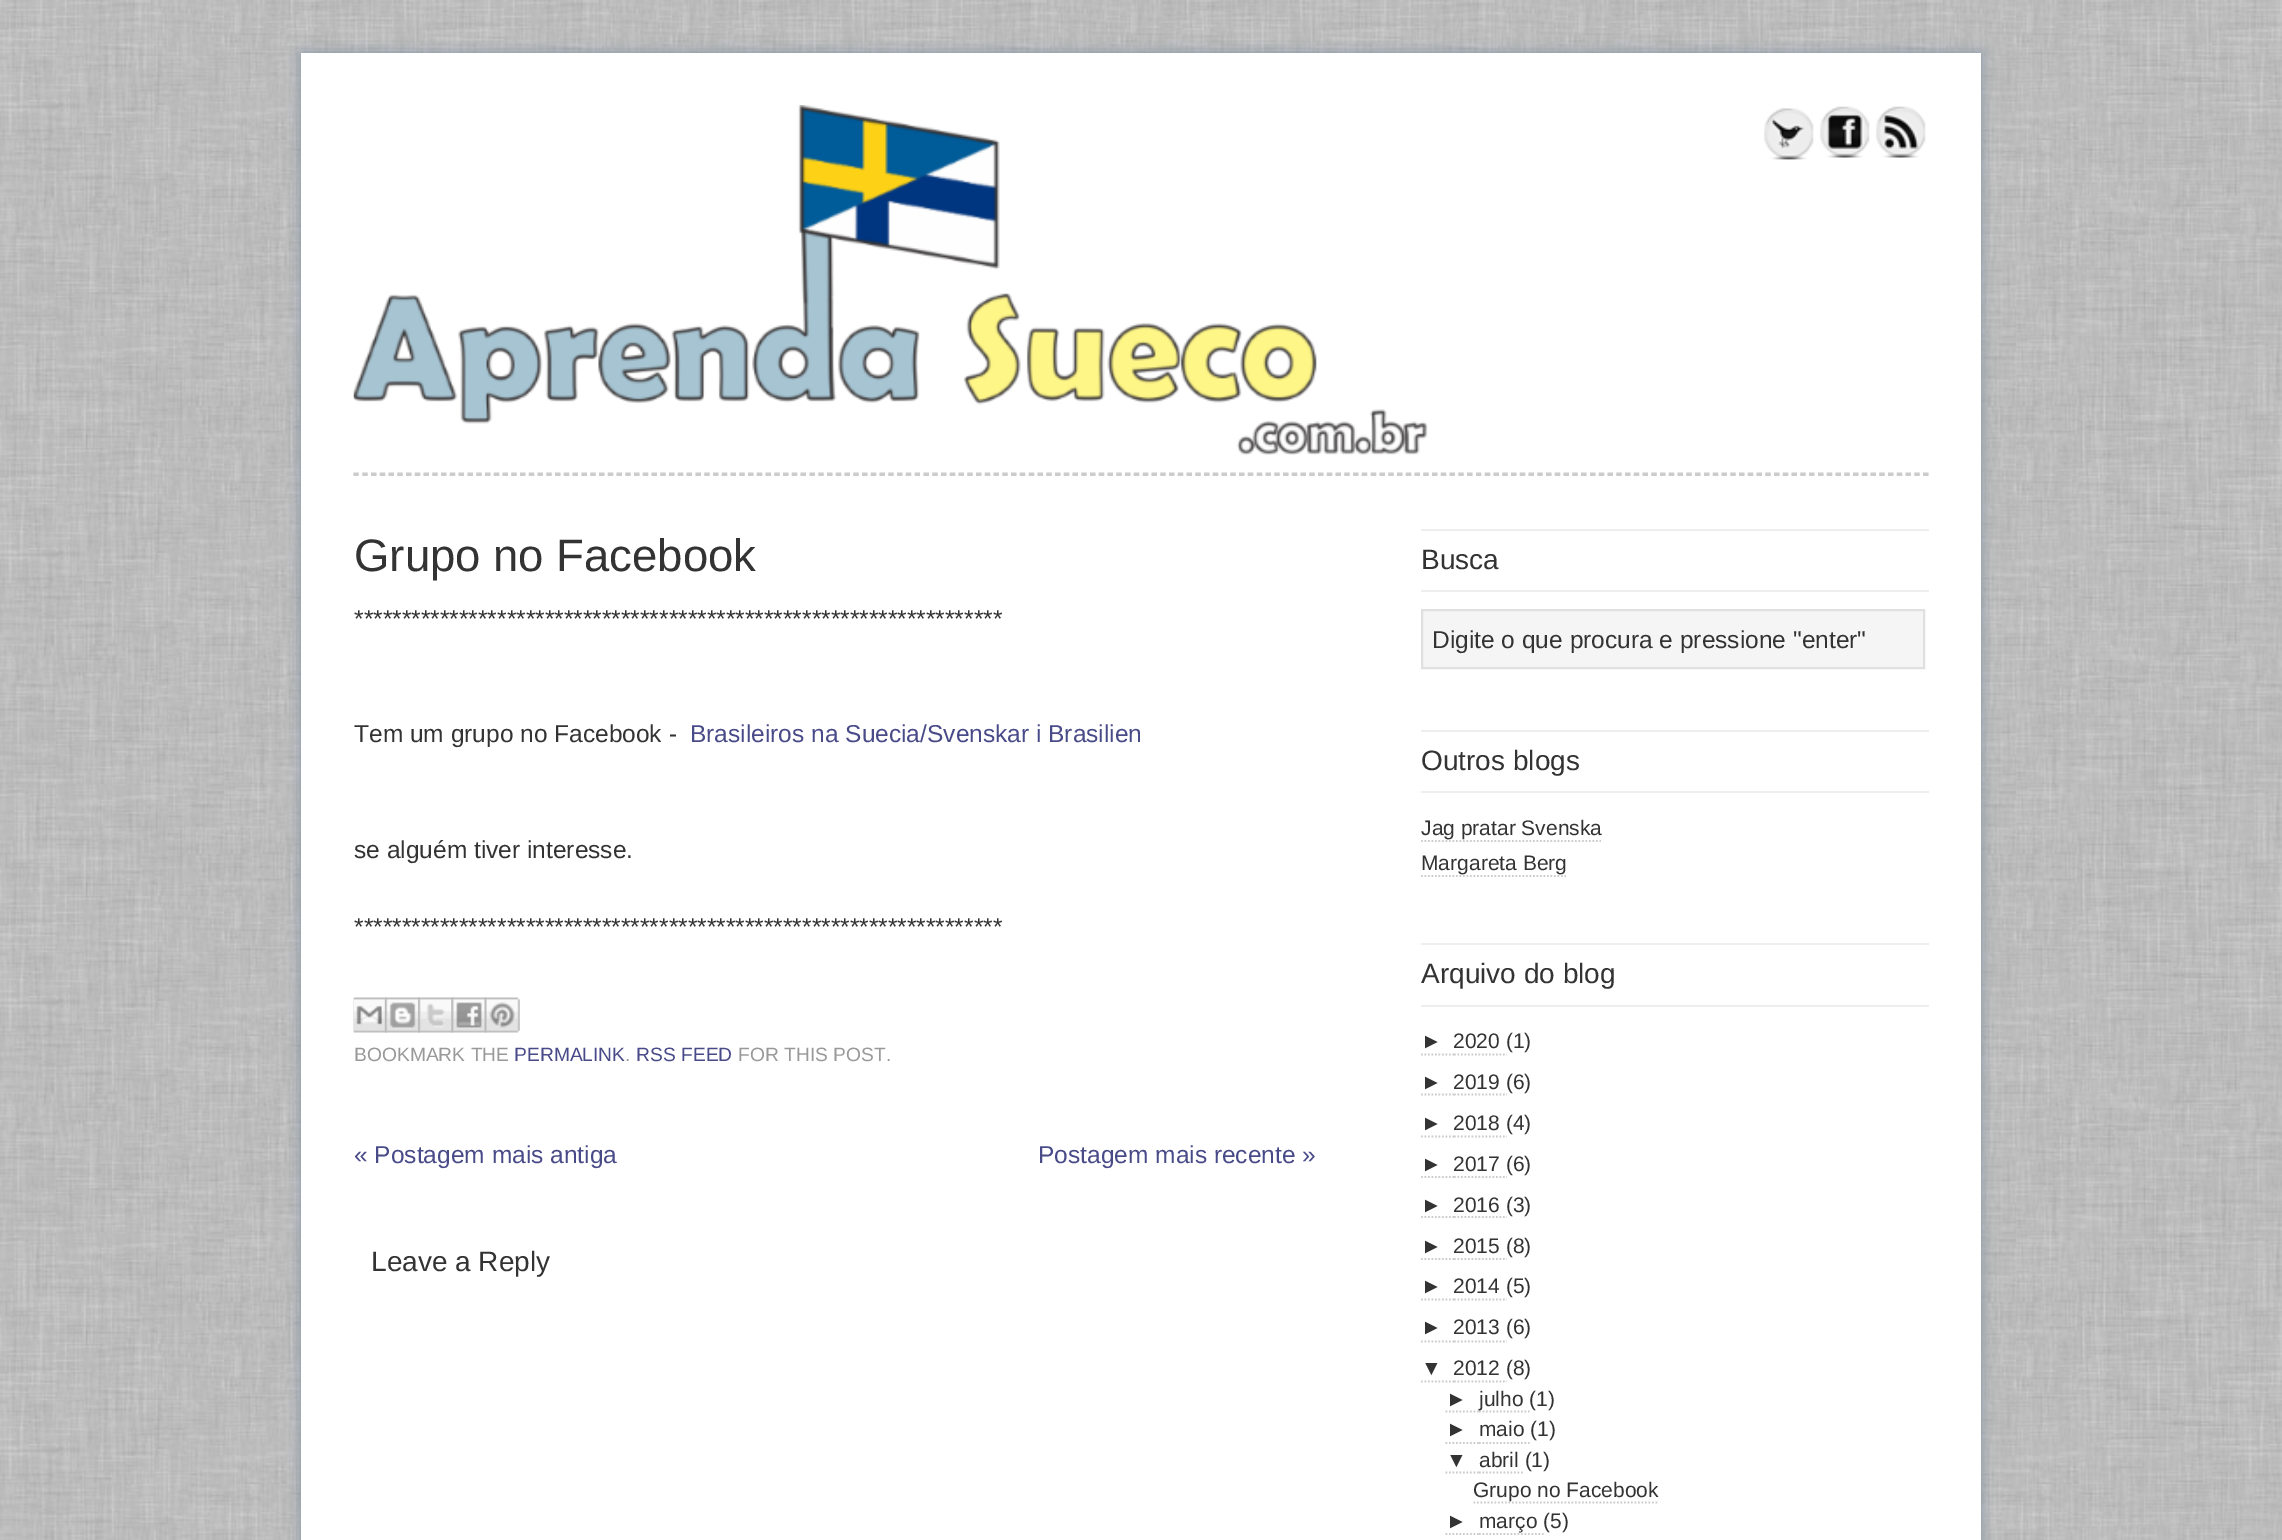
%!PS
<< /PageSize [2282 1540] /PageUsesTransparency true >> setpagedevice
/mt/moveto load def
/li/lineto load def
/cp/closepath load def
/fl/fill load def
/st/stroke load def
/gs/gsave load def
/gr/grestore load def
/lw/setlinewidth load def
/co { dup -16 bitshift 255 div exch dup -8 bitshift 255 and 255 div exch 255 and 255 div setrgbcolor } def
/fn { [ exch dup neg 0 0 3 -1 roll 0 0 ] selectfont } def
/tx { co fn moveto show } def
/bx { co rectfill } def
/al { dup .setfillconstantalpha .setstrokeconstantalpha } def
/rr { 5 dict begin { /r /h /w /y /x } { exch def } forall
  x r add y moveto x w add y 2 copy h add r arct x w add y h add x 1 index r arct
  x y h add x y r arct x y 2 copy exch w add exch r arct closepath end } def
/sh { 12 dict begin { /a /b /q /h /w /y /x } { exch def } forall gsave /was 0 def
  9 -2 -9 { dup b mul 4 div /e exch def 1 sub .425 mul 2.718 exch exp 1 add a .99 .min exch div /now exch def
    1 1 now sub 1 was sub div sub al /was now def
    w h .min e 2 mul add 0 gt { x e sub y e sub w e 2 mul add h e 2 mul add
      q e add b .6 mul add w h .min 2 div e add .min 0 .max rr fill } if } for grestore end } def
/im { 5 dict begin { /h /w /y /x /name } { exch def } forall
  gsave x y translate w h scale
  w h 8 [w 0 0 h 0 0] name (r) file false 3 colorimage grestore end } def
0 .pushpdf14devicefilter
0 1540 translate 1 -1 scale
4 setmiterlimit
0 0 2282 1540 16#FFFFFF bx
(media/1.raw) 0 0 2282 1540 im
16#8493A6 co
301 53 1680 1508 0 7 1 sh
301 53 1680 1487 16#FFFFFF bx
(media/2.raw) 353 105 1075 350 im
(media/3.raw) 1764 108 50 52 im
(media/4.raw) 1820 106 50 52 im
(media/5.raw) 1876 106 50 52 im
16#CCCCCC co
1.8 lw
[5.25 3.52] 0 setdash
353.5 473.5 mt 1928.5 473.5 li st
353.5 475 mt 1928.5 475 li st
(media/6.raw) 353 997 34 36 im
(media/7.raw) 385 997 35 36 im
(media/8.raw) 418 997 36 36 im
(media/9.raw) 451 997 36 36 im
(media/10.raw) 484 997 36 36 im
1421 529 508 2 16#EEEEEE bx
1421 590 508 2 16#EEEEEE bx
16#F5F5F5 co
1422 610 mt 1924 610 li 1924 668 li 1422 668 li cp gs fl gr
16#E0E0E0 co
2 lw
[] 0 setdash
st
1421 730 508 2 16#EEEEEE bx
1421 791 508 2 16#EEEEEE bx
16#CCCCCC co
1.8 lw
[1.75 1.75] 0 setdash
1421 841 mt 1601 841 li st
1421 876 mt 1566 876 li st
1421 943 508 2 16#EEEEEE bx
1421 1005 508 2 16#EEEEEE bx
16#CCCCCC co
1421 1054.5 mt 1454 1054.5 li st
1454 1054.5 mt 1507 1054.5 li st
1421 1094.5 mt 1454 1094.5 li st
1454 1094.5 mt 1507 1094.5 li st
1421 1136.5 mt 1454 1136.5 li st
1454 1136.5 mt 1507 1136.5 li st
1421 1177 mt 1454 1177 li st
1454 1177 mt 1507 1177 li st
1421 1217 mt 1454 1217 li st
1454 1217 mt 1507 1217 li st
1421 1259 mt 1454 1259 li st
1454 1259 mt 1507 1259 li st
1421 1299.5 mt 1454 1299.5 li st
1454 1299.5 mt 1507 1299.5 li st
1421 1341.5 mt 1454 1341.5 li st
1454 1341.5 mt 1507 1341.5 li st
1421 1381.5 mt 1454 1381.5 li st
1454 1381.5 mt 1507 1381.5 li st
1445.5 1411.5 mt 1479 1411.5 li st
1479 1411.5 mt 1529.5 1411.5 li st
1445.5 1443 mt 1479 1443 li st
1479 1443 mt 1529.5 1443 li st
1445.5 1472.5 mt 1479 1472.5 li st
1479 1472.5 mt 1524 1472.5 li st
1473.5 1502.5 mt 1659 1502.5 li st
1445.5 1534 mt 1479 1534 li st
1479 1534 mt 1543.5 1534 li st
(Grupo no Facebook) 354 571 /LiberationSans-Regular 45.5 16#333333 tx
(********************************************************************) 354 627 /LiberationSans-Regular 24.5 16#333333 tx
(Tem um grupo no Facebook -) 354 742 /LiberationSans-Regular 24.5 16#333333 tx
(Brasileiros na Suecia/Svenskar i Brasilien) 690 742 /LiberationSans-Regular 24.5 16#494A88 tx
(se alguém tiver interesse.) 354 858 /LiberationSans-Regular 24.5 16#333333 tx
(********************************************************************) 354 935 /LiberationSans-Regular 24.5 16#333333 tx
(BOOKMARK THE) 354 1061 /LiberationSans-Regular 19.25 16#999999 tx
(PERMALINK) 514 1061 /LiberationSans-Regular 19.25 16#494A88 tx
(.) 625 1061 /LiberationSans-Regular 19.25 16#999999 tx
(RSS FEED) 636 1061 /LiberationSans-Regular 19.25 16#494A88 tx
(FOR THIS POST.) 738 1061 /LiberationSans-Regular 19.25 16#999999 tx
(« Postagem mais antiga) 354 1163 /LiberationSans-Regular 24.5 16#494A88 tx
(Postagem mais recente ») 1038 1163 /LiberationSans-Regular 24.5 16#494A88 tx
(Leave a Reply) 371 1271 /LiberationSans-Regular 28 16#333333 tx
(Busca) 1421 569 /LiberationSans-Regular 28 16#333333 tx
(Digite o que procura e pressione "enter") 1432 648 /LiberationSans-Regular 24.5 16#333333 tx
(Outros blogs) 1421 770 /LiberationSans-Regular 28 16#333333 tx
(Jag pratar Svenska) 1421 835 /LiberationSans-Regular 21 16#333333 tx
(Margareta Berg) 1421 870 /LiberationSans-Regular 21 16#333333 tx
(Arquivo do blog) 1421 983 /LiberationSans-Regular 28 16#333333 tx
(►) 1421 1048 /LiberationSans-Regular 21 16#333333 tx
(2020 \(1\)) 1453 1048 /LiberationSans-Regular 21 16#333333 tx
(►) 1421 1089 /LiberationSans-Regular 21 16#333333 tx
(2019 \(6\)) 1453 1089 /LiberationSans-Regular 21 16#333333 tx
(►) 1421 1130 /LiberationSans-Regular 21 16#333333 tx
(2018 \(4\)) 1453 1130 /LiberationSans-Regular 21 16#333333 tx
(►) 1421 1171 /LiberationSans-Regular 21 16#333333 tx
(2017 \(6\)) 1453 1171 /LiberationSans-Regular 21 16#333333 tx
(►) 1421 1212 /LiberationSans-Regular 21 16#333333 tx
(2016 \(3\)) 1453 1212 /LiberationSans-Regular 21 16#333333 tx
(►) 1421 1253 /LiberationSans-Regular 21 16#333333 tx
(2015 \(8\)) 1453 1253 /LiberationSans-Regular 21 16#333333 tx
(►) 1421 1293 /LiberationSans-Regular 21 16#333333 tx
(2014 \(5\)) 1453 1293 /LiberationSans-Regular 21 16#333333 tx
(►) 1421 1334 /LiberationSans-Regular 21 16#333333 tx
(2013 \(6\)) 1453 1334 /LiberationSans-Regular 21 16#333333 tx
(▼) 1421 1375 /LiberationSans-Regular 21 16#333333 tx
(2012 \(8\)) 1453 1375 /LiberationSans-Regular 21 16#333333 tx
(►) 1446 1406 /LiberationSans-Regular 21 16#333333 tx
(julho \(1\)) 1479 1406 /LiberationSans-Regular 21 16#333333 tx
(►) 1446 1436 /LiberationSans-Regular 21 16#333333 tx
(maio \(1\)) 1479 1436 /LiberationSans-Regular 21 16#333333 tx
(▼) 1446 1467 /LiberationSans-Regular 21 16#333333 tx
(abril \(1\)) 1479 1467 /LiberationSans-Regular 21 16#333333 tx
(Grupo no Facebook) 1473 1497 /LiberationSans-Regular 21 16#333333 tx
(►) 1446 1528 /LiberationSans-Regular 21 16#333333 tx
(março \(5\)) 1479 1528 /LiberationSans-Regular 21 16#333333 tx
.poppdf14devicefilter showpage
